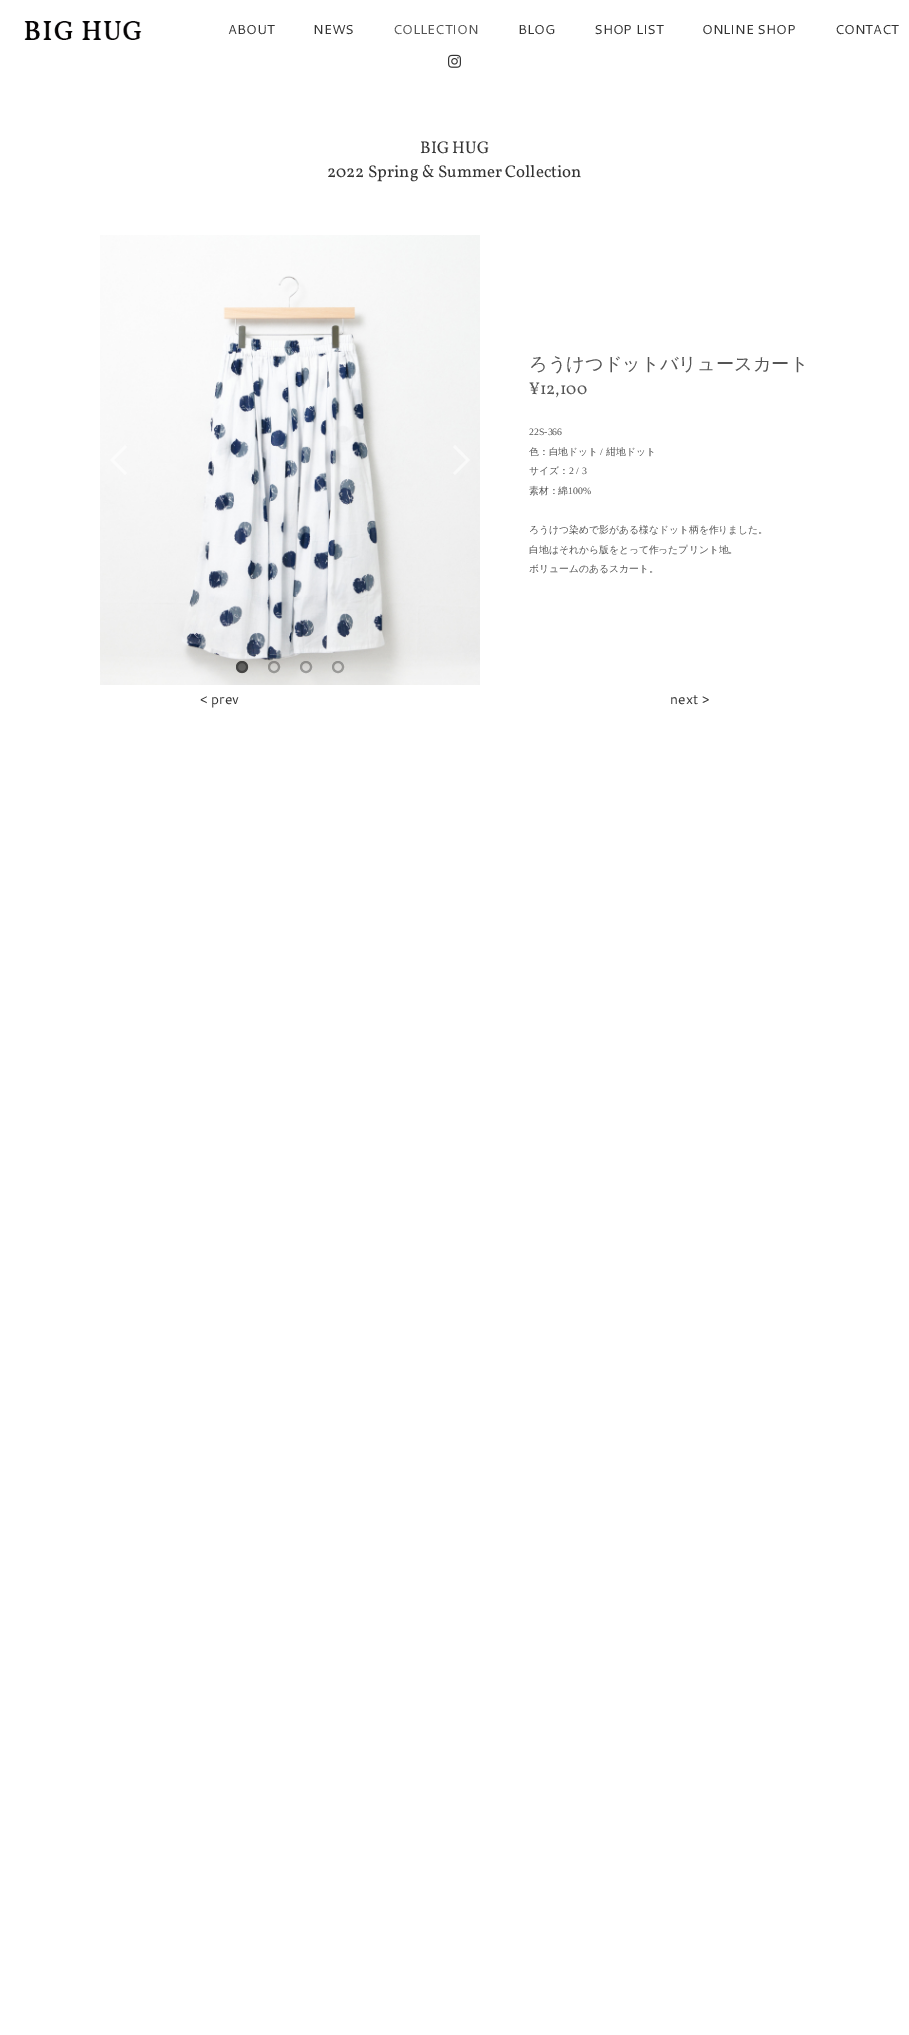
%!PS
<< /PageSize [909 2035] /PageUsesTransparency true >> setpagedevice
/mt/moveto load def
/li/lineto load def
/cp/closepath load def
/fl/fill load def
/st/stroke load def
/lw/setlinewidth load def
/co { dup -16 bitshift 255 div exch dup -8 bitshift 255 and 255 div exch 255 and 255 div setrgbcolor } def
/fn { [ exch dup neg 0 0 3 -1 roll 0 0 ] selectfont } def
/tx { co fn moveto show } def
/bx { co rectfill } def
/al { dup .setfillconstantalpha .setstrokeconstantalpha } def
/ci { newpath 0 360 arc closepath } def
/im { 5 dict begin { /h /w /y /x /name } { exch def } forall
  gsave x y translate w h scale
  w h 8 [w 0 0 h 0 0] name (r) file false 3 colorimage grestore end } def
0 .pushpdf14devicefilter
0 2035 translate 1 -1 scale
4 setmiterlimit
0 0 909 2035 16#FFFFFF bx
(media/1.raw) 24 21 118 19 im
(media/2.raw) 448 54 13 14 im
(media/3.raw) 100 235 380 450 im
16#FCFCFC co
127 473 mt 114 460 li 127 447 li 125 445 li 110 460 li 125 475 li cp fl
0.6 al
16#FFFFFF co
453 473 mt 466 460 li 453 447 li 455 445 li 470 460 li 455 475 li cp fl
0.3 al
16#000000 co
2 lw
242 667 5 ci st
0.54 al
242 667 6 ci fl
0.3 al
274 667 5 ci st
306 667 5 ci st
338 667 5 ci st
1 al
(ABOUT) 228 34 /Cantarell-Regular 13 16#333333 tx
(NEWS) 313 34 /Cantarell-Regular 13 16#333333 tx
(COLLECTION) 393 34 /Cantarell-Regular 13 16#555555 tx
(BLOG) 518 34 /Cantarell-Regular 13 16#333333 tx
(SHOP LIST) 594 34 /Cantarell-Regular 13 16#333333 tx
(ONLINE SHOP) 702 34 /Cantarell-Regular 13 16#333333 tx
(CONTACT) 835 34 /Cantarell-Regular 13 16#333333 tx
(BIG HUG) 420 153 /Vollkorn-Regular 17 16#333333 tx
(2022 Spring & Summer Collection) 327 177 /Vollkorn-Regular 17 16#333333 tx
(ろうけつドットバリュースカート) 529 370 /WenQuanYiZenHei-Medium 18.25 16#555555 tx
(¥12,100) 529 394 /Vollkorn-Regular 17 16#555555 tx
(22S-366) 529 435 /LiberationSerif-Regular 9.8 16#555555 tx
(色：白地ドット) 529 455 /WenQuanYiZenHei-Medium 9.8 16#555555 tx
(/) 600 455 /LiberationSerif-Regular 9.8 16#555555 tx
(紺地ドット) 606 455 /WenQuanYiZenHei-Medium 9.8 16#555555 tx
(サイズ：) 529 474 /WenQuanYiZenHei-Medium 9.8 16#555555 tx
(2 / 3) 569 474 /LiberationSerif-Regular 9.8 16#555555 tx
(素材：綿) 529 494 /WenQuanYiZenHei-Medium 9.8 16#555555 tx
(100%) 568 494 /LiberationSerif-Regular 9.8 16#555555 tx
(ろうけつ染めで影がある様なドット柄を作りました。) 529 533 /WenQuanYiZenHei-Medium 9.8 16#555555 tx
(白地はそれから版をとって作ったプリント地。) 529 553 /WenQuanYiZenHei-Medium 9.8 16#555555 tx
(ボリュームのあるスカート。) 529 572 /WenQuanYiZenHei-Medium 9.8 16#555555 tx
(< prev) 200 704 /Cantarell-Regular 14 16#333333 tx
(next >) 670 704 /Cantarell-Regular 14 16#333333 tx
.poppdf14devicefilter showpage
